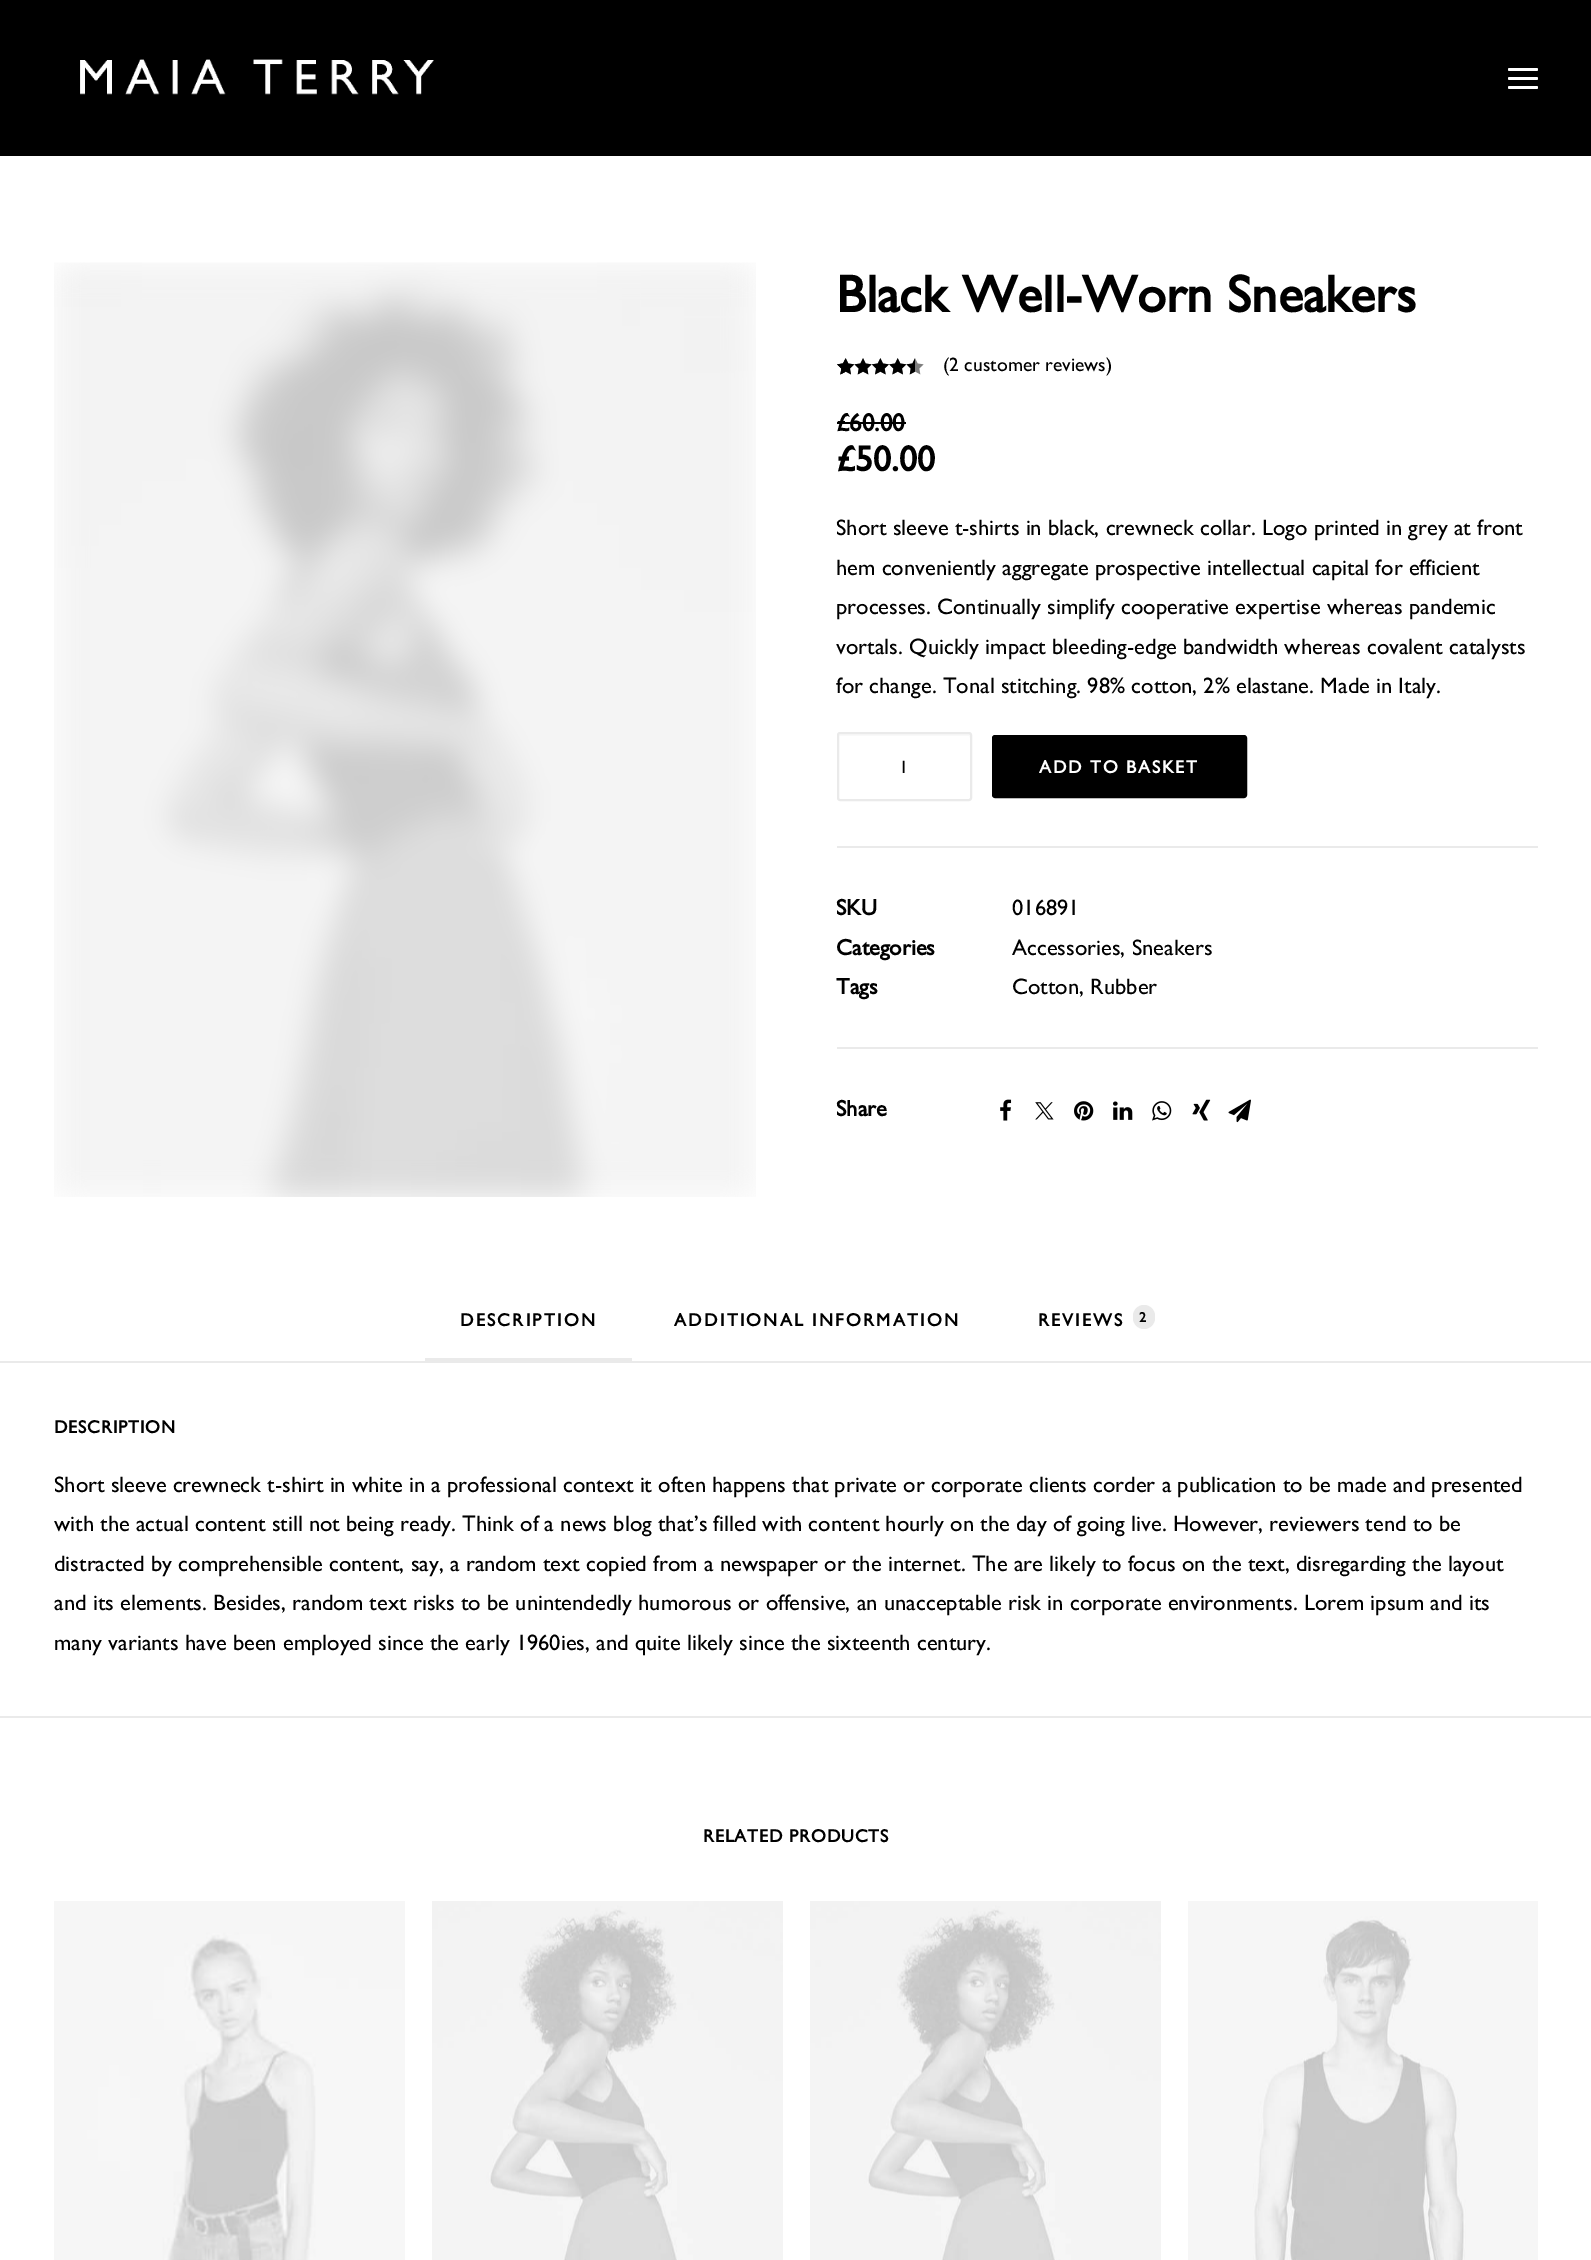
%!PS
<< /PageSize [1591 2260] >> setpagedevice
/mt/moveto load def
/li/lineto load def
/ct/curveto load def
/cp/closepath load def
/fl/fill load def
/st/stroke load def
/gs/gsave load def
/gr/grestore load def
/lw/setlinewidth load def
/co { dup -16 bitshift 255 div exch dup -8 bitshift 255 and 255 div exch 255 and 255 div setrgbcolor } def
/fn { [ exch dup neg 0 0 3 -1 roll 0 0 ] selectfont } def
/tx { co fn moveto show } def
/bx { co rectfill } def
/rr { 5 dict begin { /r /h /w /y /x } { exch def } forall
  x r add y moveto x w add y 2 copy h add r arct x w add y h add x 1 index r arct
  x y h add x y r arct x y 2 copy exch w add exch r arct closepath end } def
/im { 5 dict begin { /h /w /y /x /name } { exch def } forall
  gsave x y translate w h scale
  w h 8 [w 0 0 h 0 0] name (r) file false 3 colorimage grestore end } def
0 2260 translate 1 -1 scale
4 setmiterlimit
0 0 1591 2260 16#FFFFFF bx
0 0 1591 156 16#000000 bx
(media/1.raw) 80 59 354 36 im
16#FFFFFF co
1508 77 30 3 1.5 rr fl
1508 68 30 3 1.5 rr fl
1508 86 30 3 1.5 rr fl
(media/2.raw) 54 262 702 935 im
(media/3.raw) 837 358 87 17 im
(media/4.raw) 837 358 78 17 im
(media/5.raw) 837 359 8 16 im
837 422 69 2 16#000000 bx
16#F9F9F9 co
840 736 mt 969 736 li 970 736 970 737 970 738 ct 970 800 li 971 800 971 799 971 798 ct 971 736 li 971 735 970 734 970 734 ct 840 734 li 840 734 839 735 839 736 ct cp fl
16#EAEAEA co
2 lw
838 733 133 67 2 rr st
16#000000 co
993 736 253 61 2 rr gs fl gr
st
837 846 701 2 16#EAEAEA bx
837 1047 701 2 16#EAEAEA bx
(media/6.raw) 1000 1099 12 22 im
(media/7.raw) 1035 1102 19 18 im
(media/8.raw) 1074 1101 20 20 im
(media/9.raw) 1113 1101 20 19 im
(media/10.raw) 1152 1101 20 20 im
(media/11.raw) 1192 1099 19 22 im
(media/12.raw) 1228 1099 23 24 im
425 1358 207 3 16#EAEAEA bx
1133 1305 22 24 11 rr fl
0 1361 1591 2 16#EAEAEA bx
0 1716 1591 2 16#EAEAEA bx
(media/13.raw) 54 1901 351 359 im
(media/14.raw) 432 1901 351 359 im
(media/14.raw) 810 1901 351 359 im
(media/15.raw) 1188 1901 350 359 im
(Black Well-Worn Sneakers) 836 312 /GillSans-Bold 52.5 16#000000 tx
(\(2 customer reviews\)) 943 371 /GillSans-Regular 19.5 16#000000 tx
(£60.00) 836 431 /GillSans-Bold 25 16#000000 tx
(£50.00) 836 471 /GillSans-Bold 36 16#000000 tx
(Short sleeve t-shirts in black, crewneck collar. Logo printed in grey at front) 836 535 /GillSans-Regular 22.5 16#000000 tx
(hem conveniently aggregate prospective intellectual capital for efficient) 836 575 /GillSans-Regular 22.5 16#000000 tx
(processes. Continually simplify cooperative expertise whereas pandemic) 836 614 /GillSans-Regular 22.5 16#000000 tx
(vortals. Quickly impact bleeding-edge bandwidth whereas covalent catalysts) 836 654 /GillSans-Regular 22.5 16#000000 tx
(for change. Tonal stitching. 98% cotton, 2% elastane. Made in Italy.) 836 693 /GillSans-Regular 22.5 16#000000 tx
(1) 899 773 /GillSans-Regular 18 16#000000 tx
/GillSans-Bold 18 fn
16#FFFFFF co
1039 773 mt 1.75 0 (ADD TO BASKET) ashow
(SKU) 836 915 /GillSans-Bold 22.5 16#000000 tx
(016891) 1012 915 /GillSans-Regular 22.5 16#000000 tx
(Categories) 836 955 /GillSans-Bold 22.5 16#000000 tx
(Accessories, Sneakers) 1012 955 /GillSans-Regular 22.5 16#000000 tx
(Tags) 836 994 /GillSans-Bold 22.5 16#000000 tx
(Cotton, Rubber) 1012 994 /GillSans-Regular 22.5 16#000000 tx
(Share) 836 1116 /GillSans-Bold 22.5 16#000000 tx
/GillSans-Bold 18 fn
460 1326 mt 2.25 0 (DESCRIPTION) ashow
674 1326 mt 2.25 0 (ADDITIONAL INFORMATION) ashow
1038 1326 mt 2.25 0 (REVIEWS) ashow
/GillSans-Bold 14 fn
1139 1322 mt 2.25 0 (2) ashow
/GillSans-Bold 18 fn
54 1433 mt .9 0 (DESCRIPTION) ashow
(Short sleeve crewneck t-shirt in white in a professional context it often happens that private or corporate clients corder a publication to be made and presented) 54 1492 /GillSans-Regular 22.5 16#000000 tx
(with the actual content still not being ready. Think of a news blog that’s filled with content hourly on the day of going live. However, reviewers tend to be) 54 1531 /GillSans-Regular 22.5 16#000000 tx
(distracted by comprehensible content, say, a random text copied from a newspaper or the internet. The are likely to focus on the text, disregarding the layout) 54 1571 /GillSans-Regular 22.5 16#000000 tx
(and its elements. Besides, random text risks to be unintendedly humorous or offensive, an unacceptable risk in corporate environments. Lorem ipsum and its) 54 1610 /GillSans-Regular 22.5 16#000000 tx
(many variants have been employed since the early 1960ies, and quite likely since the sixteenth century.) 54 1650 /GillSans-Regular 22.5 16#000000 tx
/GillSans-Bold 18 fn
703 1842 mt .9 0 (RELATED PRODUCTS) ashow
showpage
